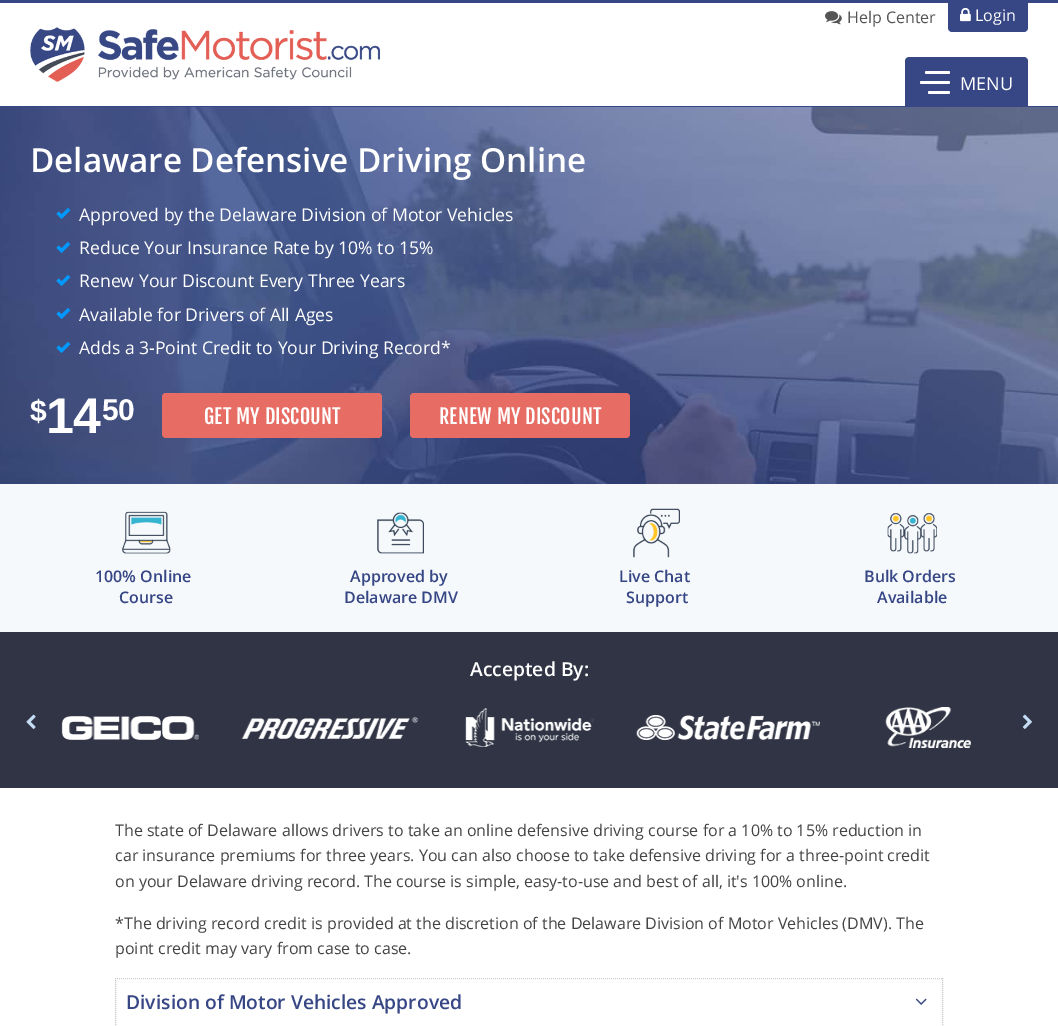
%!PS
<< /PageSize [1058 1026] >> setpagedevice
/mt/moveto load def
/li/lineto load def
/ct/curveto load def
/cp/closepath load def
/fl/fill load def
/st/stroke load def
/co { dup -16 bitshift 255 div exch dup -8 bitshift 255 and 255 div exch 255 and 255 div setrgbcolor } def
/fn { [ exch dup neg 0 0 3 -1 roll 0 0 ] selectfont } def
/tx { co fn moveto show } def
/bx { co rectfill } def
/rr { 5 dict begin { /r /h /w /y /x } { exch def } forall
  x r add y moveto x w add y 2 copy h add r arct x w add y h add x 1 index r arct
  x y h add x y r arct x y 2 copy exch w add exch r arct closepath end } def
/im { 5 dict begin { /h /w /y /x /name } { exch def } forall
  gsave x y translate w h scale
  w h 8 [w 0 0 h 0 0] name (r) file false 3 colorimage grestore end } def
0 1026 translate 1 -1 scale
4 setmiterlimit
0 0 1058 1026 16#FFFFFF bx
0 0 1058 3 16#374785 bx
(media/1.raw) 825 11 17 14 im
948 3 mt 1028 3 li 1028 28 li 1028 30 1026 32 1024 32 ct 952 32 li 950 32 948 30 948 28 ct cp fl
(media/2.raw) 960 7 11 15 im
(media/3.raw) 30 27 350 55 im
0 106 1058 1 16#374785 bx
909 57 mt 1024 57 li 1026 57 1028 59 1028 61 ct 1028 107 li 905 107 li 905 61 li 905 59 907 57 909 57 ct cp fl
16#FFFFFF co
925 71 25 3 1.5 rr fl
920 81 30 3 1.5 rr fl
928 91 22 3 1.5 rr fl
(media/4.raw) 0 107 1058 377 im
(media/5.raw) 56 207 15 12 im
(media/6.raw) 56 241 15 12 im
(media/7.raw) 56 274 15 12 im
(media/8.raw) 56 307 15 12 im
(media/9.raw) 56 341 15 12 im
16#E76D64 co
162 393 220 45 4 rr fl
410 393 220 45 4 rr fl
0 484 1058 148 16#F6F9FC bx
(media/10.raw) 121 511 50 43 im
(media/11.raw) 377 512 47 42 im
(media/12.raw) 633 508 47 50 im
(media/13.raw) 887 513 50 41 im
0 632 1058 156 16#303444 bx
(media/14.raw) 61 716 138 24 im
(media/15.raw) 241 717 177 22 im
(media/16.raw) 465 708 129 39 im
(media/17.raw) 636 715 184 25 im
(media/18.raw) 885 707 86 41 im
(media/19.raw) 26 714 10 15 im
(media/20.raw) 1022 714 10 15 im
16#CCCCCC co
[1 1] 0 setdash
115 978.5 mt 943 978.5 li st
942.5 978 mt 942.5 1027 li st
115.5 978 mt 115.5 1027 li st
(media/21.raw) 915 998 12 7 im
(Help Center) 847 23 /OpenSans-Regular 16 16#555555 tx
(Login) 975 21 /OpenSans-Regular 16 16#FFFFFF tx
(MENU) 960 90 /OpenSans-Regular 18 16#FFFFFF tx
(Delaware Defensive Driving Online) 30 172 /OpenSans-SemiBold 33.2 16#FFFFFF tx
(Approved by the Delaware Division of Motor Vehicles) 79 221 /OpenSans-Regular 17.6 16#FFFFFF tx
(Reduce Your Insurance Rate by 10% to 15%) 79 254 /OpenSans-Regular 17.6 16#FFFFFF tx
(Renew Your Discount Every Three Years) 79 287 /OpenSans-Regular 17.6 16#FFFFFF tx
(Available for Drivers of All Ages) 79 321 /OpenSans-Regular 17.6 16#FFFFFF tx
(Adds a 3-Point Credit to Your Driving Record*) 79 354 /OpenSans-Regular 17.6 16#FFFFFF tx
($) 30 421 /LiberationSans-Bold 30 16#FFFFFF tx
/LiberationSans-Bold 50 fn
46 433 mt -1 0 (14) ashow
/LiberationSans-Bold 30 fn
102 420 mt -1 0 (50) ashow
/FjallaOne-Regular 20 fn
204 424 mt .25 0 (GET MY DISCOUNT) ashow
439 424 mt .25 0 (RENEW MY DISCOUNT) ashow
(100% Online) 95 582 /OpenSans-SemiBold 16 16#374785 tx
(Course) 119 603 /OpenSans-SemiBold 16 16#374785 tx
(Approved by) 350 582 /OpenSans-SemiBold 16 16#374785 tx
(Delaware DMV) 344 603 /OpenSans-SemiBold 16 16#374785 tx
(Live Chat) 619 582 /OpenSans-SemiBold 16 16#374785 tx
(Support) 626 603 /OpenSans-SemiBold 16 16#374785 tx
(Bulk Orders) 864 582 /OpenSans-SemiBold 16 16#374785 tx
(Available) 877 603 /OpenSans-SemiBold 16 16#374785 tx
(Accepted By:) 470 676 /OpenSans-SemiBold 19.25 16#FFFFFF tx
(The state of Delaware allows drivers to take an online defensive driving course for a 10% to 15% reduction in) 115 836 /OpenSans-Regular 16 16#444444 tx
(car insurance premiums for three years. You can also choose to take defensive driving for a three-point credit) 115 861 /OpenSans-Regular 16 16#444444 tx
(on your Delaware driving record. The course is simple, easy-to-use and best of all, it's 100% online.) 115 887 /OpenSans-Regular 16 16#444444 tx
(*The driving record credit is provided at the discretion of the Delaware Division of Motor Vehicles \(DMV\). The) 115 929 /OpenSans-Regular 16 16#444444 tx
(point credit may vary from case to case.) 115 954 /OpenSans-Regular 16 16#444444 tx
(Division of Motor Vehicles Approved) 126 1009 /OpenSans-SemiBold 19.25 16#374785 tx
showpage
